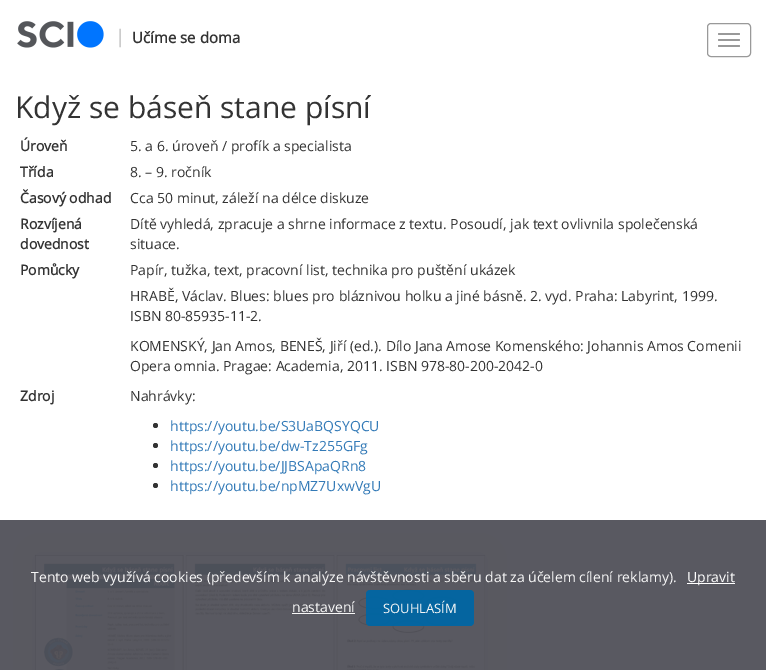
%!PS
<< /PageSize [766 670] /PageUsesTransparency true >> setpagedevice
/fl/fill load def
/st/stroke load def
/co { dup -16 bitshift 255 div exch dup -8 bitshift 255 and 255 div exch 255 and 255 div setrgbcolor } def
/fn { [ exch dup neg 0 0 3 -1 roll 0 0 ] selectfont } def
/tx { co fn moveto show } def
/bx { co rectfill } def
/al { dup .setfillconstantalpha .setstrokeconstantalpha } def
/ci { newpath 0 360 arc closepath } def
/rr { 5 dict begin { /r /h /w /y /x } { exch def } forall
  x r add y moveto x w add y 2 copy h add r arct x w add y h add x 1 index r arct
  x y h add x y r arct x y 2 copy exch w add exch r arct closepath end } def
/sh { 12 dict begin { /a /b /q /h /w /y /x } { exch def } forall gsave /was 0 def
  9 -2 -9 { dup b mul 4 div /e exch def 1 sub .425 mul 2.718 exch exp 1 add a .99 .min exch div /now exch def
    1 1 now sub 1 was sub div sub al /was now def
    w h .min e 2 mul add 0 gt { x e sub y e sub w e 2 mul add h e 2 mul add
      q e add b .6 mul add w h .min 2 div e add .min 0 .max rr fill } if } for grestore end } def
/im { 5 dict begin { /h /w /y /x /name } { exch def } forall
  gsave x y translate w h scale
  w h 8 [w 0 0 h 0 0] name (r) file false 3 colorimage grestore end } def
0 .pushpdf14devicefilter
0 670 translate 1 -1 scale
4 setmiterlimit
0 0 766 670 16#FFFFFF bx
(media/1.raw) 17 21 87 27 im
16#999999 co
707.5 23.5 43 33 3.5 rr st
718 33 22 2 1 rr fl
718 39 22 2 1 rr fl
718 45 22 2 1 rr fl
16#333333 co
155.5 425.5 2.5 ci fl
155.5 445.5 2.5 ci fl
155.5 465.5 2.5 ci fl
155.5 485.5 2.5 ci fl
16#EBEBEC co
35 555 450 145 0 10 1 sh
(media/2.raw) 35 555 450 115 im
0.95 al
0 520 766 150 16#505058 bx
1 al
687 583 48 1 16#FFFFFF bx
292 613 63 1 16#F7F7F7 bx
0.95 al
16#0066A3 co
366 590 108 36 4 rr fl
1 al
(|) 115 43 /OpenSans-Bold 18 16#CCCCCC tx
(Učíme se doma) 132 43 /OpenSans-Bold 15 16#333333 tx
(Když se báseň stane písní) 15 118 /OpenSans-Regular 30 16#333333 tx
(Úroveň) 20 151 /OpenSans-Bold 14 16#333333 tx
(5. a 6. úroveň / profík a specialista) 130 151 /OpenSans-Regular 14 16#333333 tx
(Třída) 20 177 /OpenSans-Bold 14 16#333333 tx
(8. – 9. ročník) 130 177 /OpenSans-Regular 14 16#333333 tx
(Časový odhad) 20 203 /OpenSans-Bold 14 16#333333 tx
(Cca 50 minut, záleží na délce diskuze) 130 203 /OpenSans-Regular 14 16#333333 tx
(Rozvíjená) 20 229 /OpenSans-Bold 14 16#333333 tx
(dovednost) 20 249 /OpenSans-Bold 14 16#333333 tx
(Dítě vyhledá, zpracuje a shrne informace z textu. Posoudí, jak text ovlivnila společenská) 130 229 /OpenSans-Regular 14 16#333333 tx
(situace.) 130 249 /OpenSans-Regular 14 16#333333 tx
(Pomůcky) 20 275 /OpenSans-Bold 14 16#333333 tx
(Papír, tužka, text, pracovní list, technika pro puštění ukázek) 130 275 /OpenSans-Regular 14 16#333333 tx
(Zdroj) 20 401 /OpenSans-Bold 14 16#333333 tx
(HRABĚ, Václav. Blues: blues pro bláznivou holku a jiné básně. 2. vyd. Praha: Labyrint, 1999.) 130 301 /OpenSans-Regular 14 16#333333 tx
(ISBN 80-85935-11-2.) 130 321 /OpenSans-Regular 14 16#333333 tx
(KOMENSKÝ, Jan Amos, BENEŠ, Jiří \(ed.\). Dílo Jana Amose Komenského: Johannis Amos Comenii) 130 351 /OpenSans-Regular 14 16#333333 tx
(Opera omnia. Pragae: Academia, 2011. ISBN 978-80-200-2042-0) 130 371 /OpenSans-Regular 14 16#333333 tx
(Nahrávky:) 130 401 /OpenSans-Regular 14 16#333333 tx
(https://youtu.be/S3UaBQSYQCU) 170 431 /OpenSans-Regular 14 16#337AB7 tx
(https://youtu.be/dw-Tz255GFg) 170 451 /OpenSans-Regular 14 16#337AB7 tx
(https://youtu.be/JJBSApaQRn8) 170 471 /OpenSans-Regular 14 16#337AB7 tx
(https://youtu.be/npMZ7UxwVgU) 170 491 /OpenSans-Regular 14 16#337AB7 tx
(Tento web využívá cookies \(především k analýze návštěvnosti a sběru dat za účelem cílení reklamy\).) 31 582 /OpenSans-Regular 14 16#F7F7F7 tx
(Upravit) 687 582 /OpenSans-Regular 14 16#FFFFFF tx
(nastavení) 292 612 /OpenSans-Regular 14 16#F7F7F7 tx
(SOUHLASÍM) 383 613 /OpenSans-Regular 13 16#F7F7F7 tx
.poppdf14devicefilter showpage
